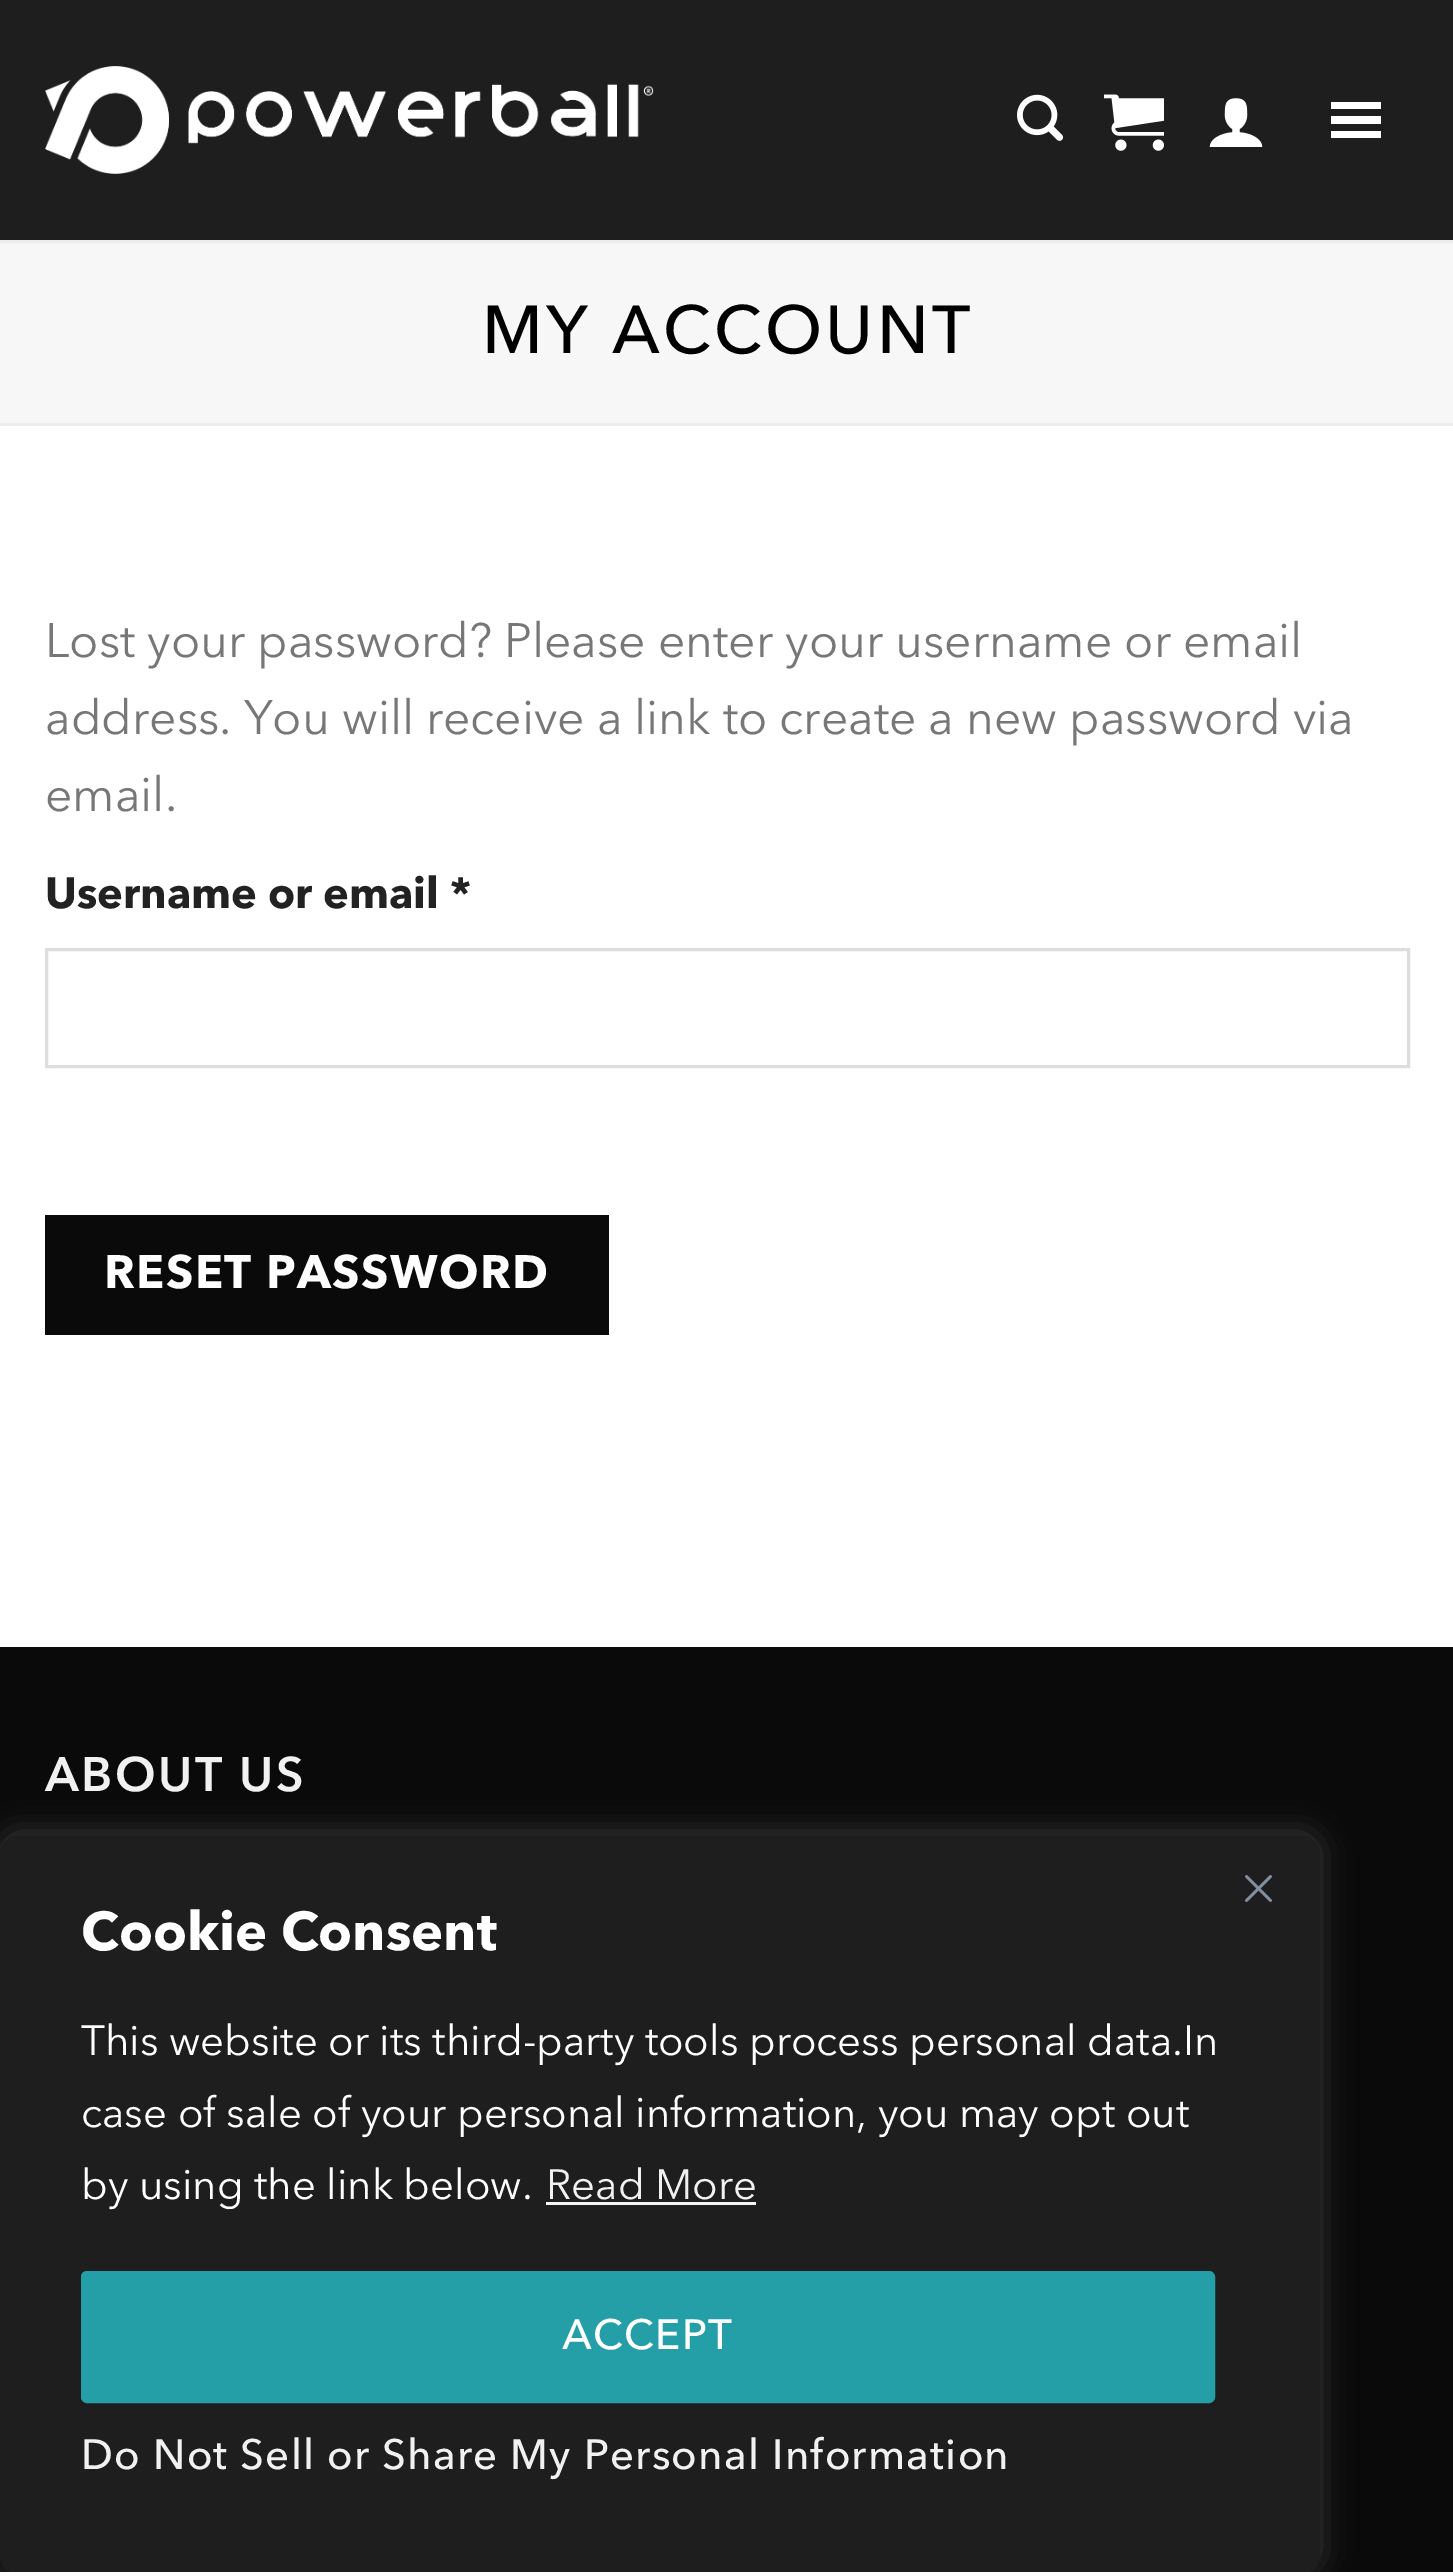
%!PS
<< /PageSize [1453 2572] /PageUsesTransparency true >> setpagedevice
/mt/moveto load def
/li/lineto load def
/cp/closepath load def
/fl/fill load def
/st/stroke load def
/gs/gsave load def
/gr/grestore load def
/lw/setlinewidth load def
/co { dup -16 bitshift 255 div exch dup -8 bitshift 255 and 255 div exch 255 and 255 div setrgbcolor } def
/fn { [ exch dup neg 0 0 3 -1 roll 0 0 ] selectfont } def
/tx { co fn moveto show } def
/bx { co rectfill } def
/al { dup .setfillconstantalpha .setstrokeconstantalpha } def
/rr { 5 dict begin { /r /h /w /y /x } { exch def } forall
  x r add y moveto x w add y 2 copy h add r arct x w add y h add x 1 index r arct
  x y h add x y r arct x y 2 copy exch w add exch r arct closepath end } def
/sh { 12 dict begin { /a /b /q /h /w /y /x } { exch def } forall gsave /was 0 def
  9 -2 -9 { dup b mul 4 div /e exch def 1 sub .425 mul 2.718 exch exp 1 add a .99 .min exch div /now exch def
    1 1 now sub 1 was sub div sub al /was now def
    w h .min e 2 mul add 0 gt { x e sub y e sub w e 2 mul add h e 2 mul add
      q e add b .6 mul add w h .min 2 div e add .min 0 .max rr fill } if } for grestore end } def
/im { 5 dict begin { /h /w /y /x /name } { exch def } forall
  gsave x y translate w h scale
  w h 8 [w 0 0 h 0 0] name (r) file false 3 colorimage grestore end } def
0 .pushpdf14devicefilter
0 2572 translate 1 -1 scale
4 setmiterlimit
0 0 1453 2572 16#FFFFFF bx
0 0 1453 240 16#1E1E1E bx
(media/1.raw) 45 66 609 108 im
(media/2.raw) 1017 94 47 47 im
(media/3.raw) 1104 94 60 57 im
(media/4.raw) 1209 98 54 49 im
16#FFFFFF co
1331 138 mt 1381 138 li 1381 131 li 1331 131 li cp 1331 102 mt 1331 109 li 1381 109 li 1381 102 li cp 1331 124 mt 1381 124 li 1381 116 li 1331 116 li cp fl
0 243 1453 180 16#F7F7F7 bx
0 240 1453 3 16#ECECEC bx
0 423 1453 3 16#ECECEC bx
16#DDDDDD co
3 lw
46.5 949.5 1362 117 rectstroke
45 1215 564 120 16#0A0A0A bx
0 1647 1453 925 16#0A0A0A bx
16#ACABAB co
0 1833 1320 738 18 15 .3 sh
16#1E1E1E co
0 1836 1320 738 18 rr fl
(media/5.raw) 1245 1875 27 27 im
546 2202 210 3 16#F4F4F4 bx
16#249FA7 co
84 2274 1128 126 3 rr gs fl gr
6 lw
st
/AvenirNext-Medium 67.25 fn
16#000000 co
482 353 mt 3.4 0 (MY ACCOUNT) ashow
(Lost your password? Please enter your username or email) 45 657 /AvenirNext-Regular 48 16#777777 tx
(address. You will receive a link to create a new password via) 45 734 /AvenirNext-Regular 48 16#777777 tx
(email.) 45 811 /AvenirNext-Regular 48 16#777777 tx
(Username or email *) 45 908 /AvenirNext-Bold 43.25 16#222222 tx
/AvenirNext-Bold 46.5 fn
16#FFFFFF co
104 1288 mt 1.4 0 (RESET PASSWORD) ashow
/AvenirNext-SemiBold 48 fn
16#F1F1F1 co
45 1791 mt 2.5 0 (ABOUT US) ashow
(Cookie Consent) 81 1950 /AvenirNext-Bold 54 16#FFFFFF tx
(This website or its third-party tools process personal data.In) 81 2055 /AvenirNext-Regular 42 16#FFFFFF tx
(case of sale of your personal information, you may opt out) 81 2127 /AvenirNext-Regular 42 16#FFFFFF tx
(by using the link below.) 81 2199 /AvenirNext-Regular 42 16#FFFFFF tx
(Read More) 546 2199 /AvenirNext-Regular 42 16#F1F1F1 tx
/AvenirNext-Medium 42 fn
16#FFFFFF co
562 2349 mt 1.25 0 (ACCEPT) ashow
16#F1F1F1 co
81 2469 mt 1.25 0 (Do Not Sell or Share My Personal Information) ashow
.poppdf14devicefilter showpage
